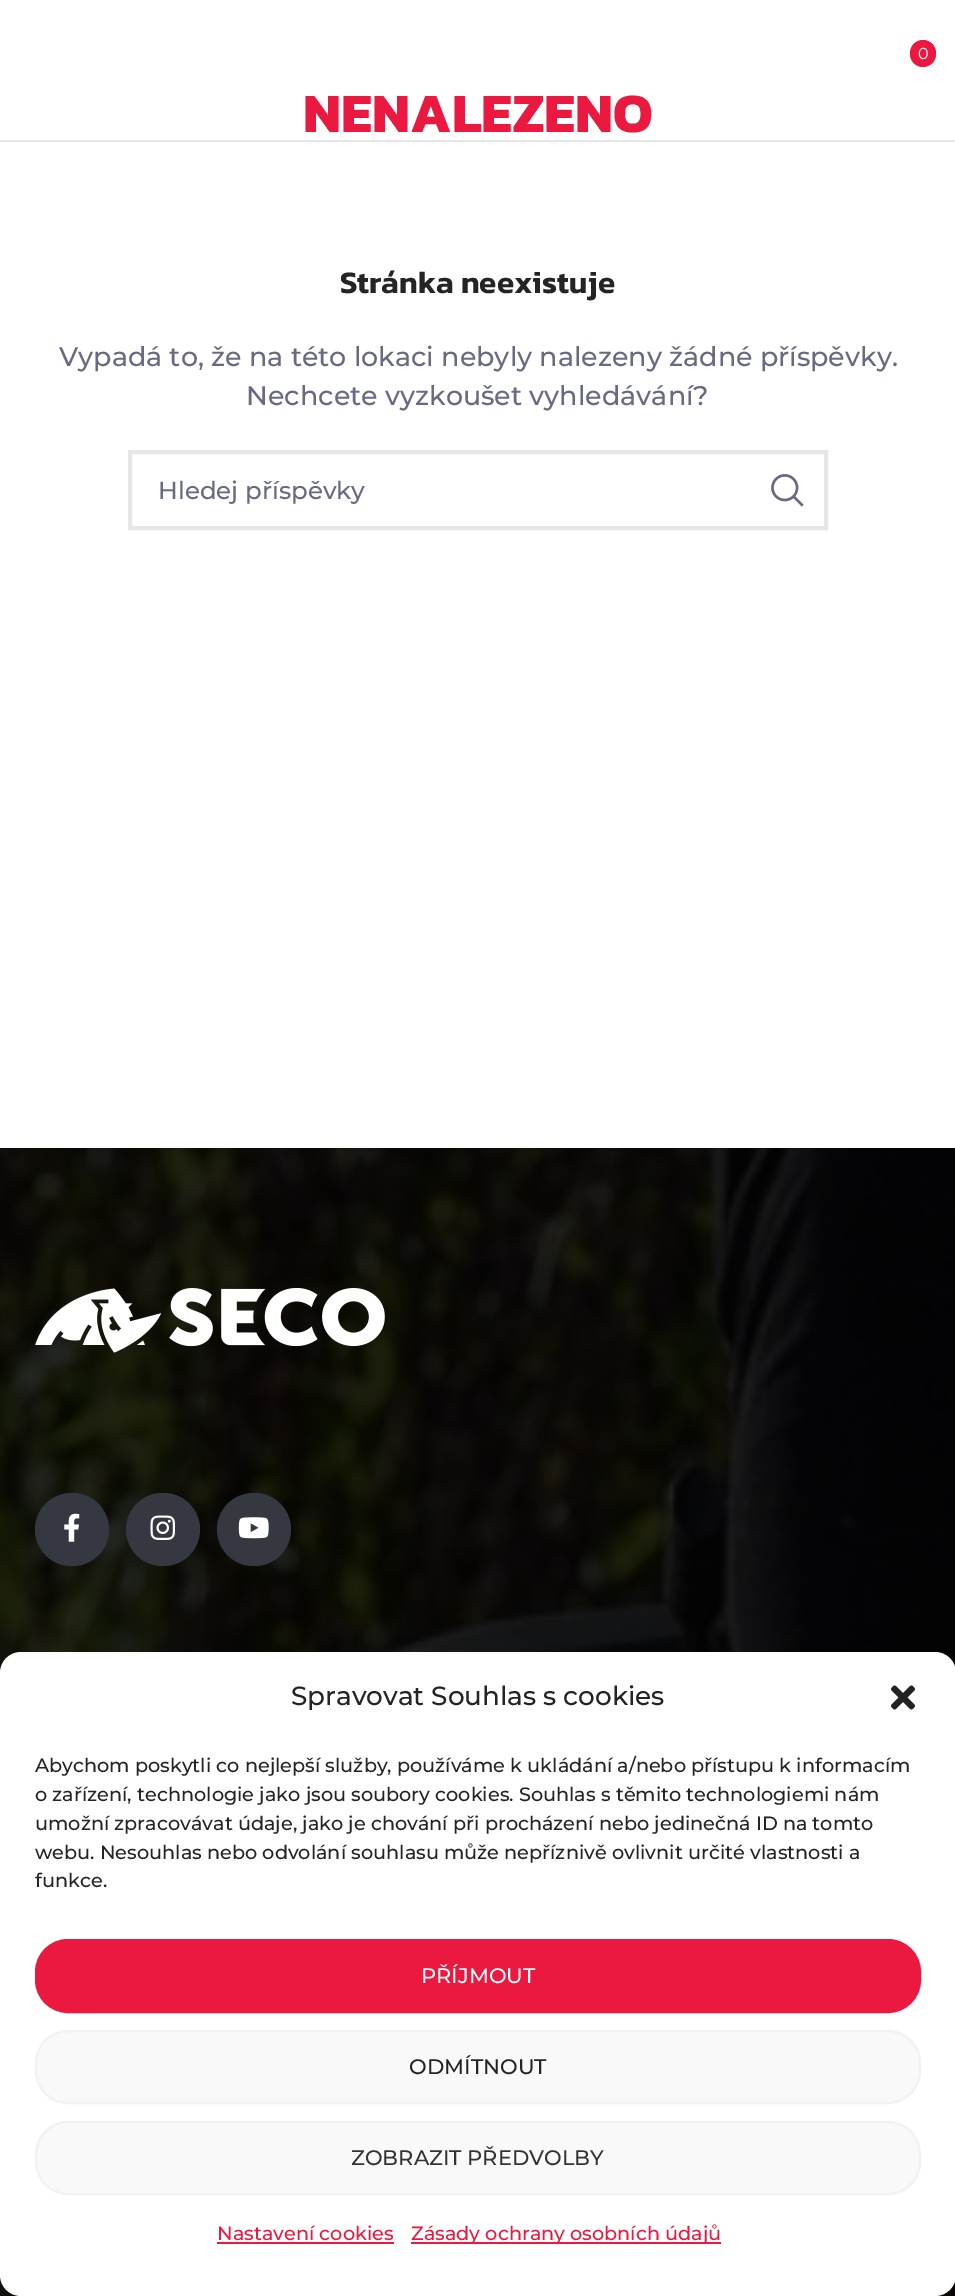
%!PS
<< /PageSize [955 2296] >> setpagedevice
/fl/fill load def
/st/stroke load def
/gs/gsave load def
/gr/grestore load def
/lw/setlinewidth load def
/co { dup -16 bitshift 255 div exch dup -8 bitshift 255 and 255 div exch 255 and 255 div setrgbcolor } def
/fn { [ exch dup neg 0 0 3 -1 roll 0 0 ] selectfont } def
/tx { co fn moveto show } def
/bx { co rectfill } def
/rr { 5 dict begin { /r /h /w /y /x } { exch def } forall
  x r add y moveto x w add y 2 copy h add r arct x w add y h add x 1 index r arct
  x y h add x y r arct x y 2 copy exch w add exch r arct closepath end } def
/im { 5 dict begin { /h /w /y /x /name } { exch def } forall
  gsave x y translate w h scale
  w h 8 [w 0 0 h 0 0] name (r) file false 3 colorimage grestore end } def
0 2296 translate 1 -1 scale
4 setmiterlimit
0 0 955 2296 16#FFFFFF bx
0 140 955 2 16#E6E6E6 bx
16#EB183F co
910 40 26 27 13 rr fl
16#E6E6E6 co
4 lw
130 452 696 76 rectstroke
(media/1.raw) 771 474 33 33 im
(media/2.raw) 0 1148 955 1148 im
(media/3.raw) 35 1288 350 65 im
16#353841 co
35 1493 74 73 36.5 rr fl
(media/4.raw) 64 1513 16 29 im
126 1493 74 73 36.5 rr fl
(media/5.raw) 150 1515 25 25 im
217 1493 74 73 36.5 rr fl
(media/6.raw) 238 1517 31 22 im
16#FFFFFF co
0 1652 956 644 21 rr fl
(media/7.raw) 891 1685 24 25 im
16#EB183F co
36 1940 884 72 32 rr gs fl gr
2 lw
st
16#F9F9F9 co
36 2031 884 72 32 rr gs fl gr
16#F2F2F2 co
st
16#F9F9F9 co
36 2122 884 72 32 rr gs fl gr
16#F2F2F2 co
st
217 2242 177 2 16#EB183F bx
411 2242 310 2 16#EB183F bx
(0) 918 59 /Montserrat-Regular 16 16#FFFFFF tx
(NENALEZENO) 303 132 /Kanit-Bold 56 16#EB183F tx
(Stránka neexistuje) 340 293 /Kanit-SemiBold 31.5 16#242424 tx
(Vypadá to, že na této lokaci nebyly nalezeny žádné příspěvky.) 59 366 /Montserrat-Medium 26.95 16#686A81 tx
(Nechcete vyzkoušet vyhledávání?) 246 405 /Montserrat-Medium 26.95 16#686A81 tx
(Hledej příspěvky) 158 499 /Montserrat-Medium 24.5 16#686A81 tx
(Spravovat Souhlas s cookies) 291 1705 /Montserrat-Medium 26.25 16#242424 tx
(Abychom poskytli co nejlepší služby, používáme k ukládání a/nebo přístupu k informacím) 35 1772 /Montserrat-Medium 19.25 16#242424 tx
(o zařízení, technologie jako jsou soubory cookies. Souhlas s těmito technologiemi nám) 35 1801 /Montserrat-Medium 19.25 16#242424 tx
(umožní zpracovávat údaje, jako je chování při procházení nebo jedinečná ID na tomto) 35 1830 /Montserrat-Medium 19.25 16#242424 tx
(webu. Nesouhlas nebo odvolání souhlasu může nepříznivě ovlivnit určité vlastnosti a) 35 1859 /Montserrat-Medium 19.25 16#242424 tx
(funkce.) 35 1887 /Montserrat-Medium 19.25 16#242424 tx
(PŘÍJMOUT) 421 1983 /Montserrat-Medium 21 16#FFFFFF tx
(ODMÍTNOUT) 409 2074 /Montserrat-Medium 21 16#242424 tx
(ZOBRAZIT PŘEDVOLBY) 351 2165 /Montserrat-Medium 21 16#333333 tx
(Nastavení cookies) 217 2240 /Montserrat-Medium 19.25 16#EB183F tx
(Zásady ochrany osobních údajů) 411 2240 /Montserrat-Medium 19.25 16#EB183F tx
showpage
